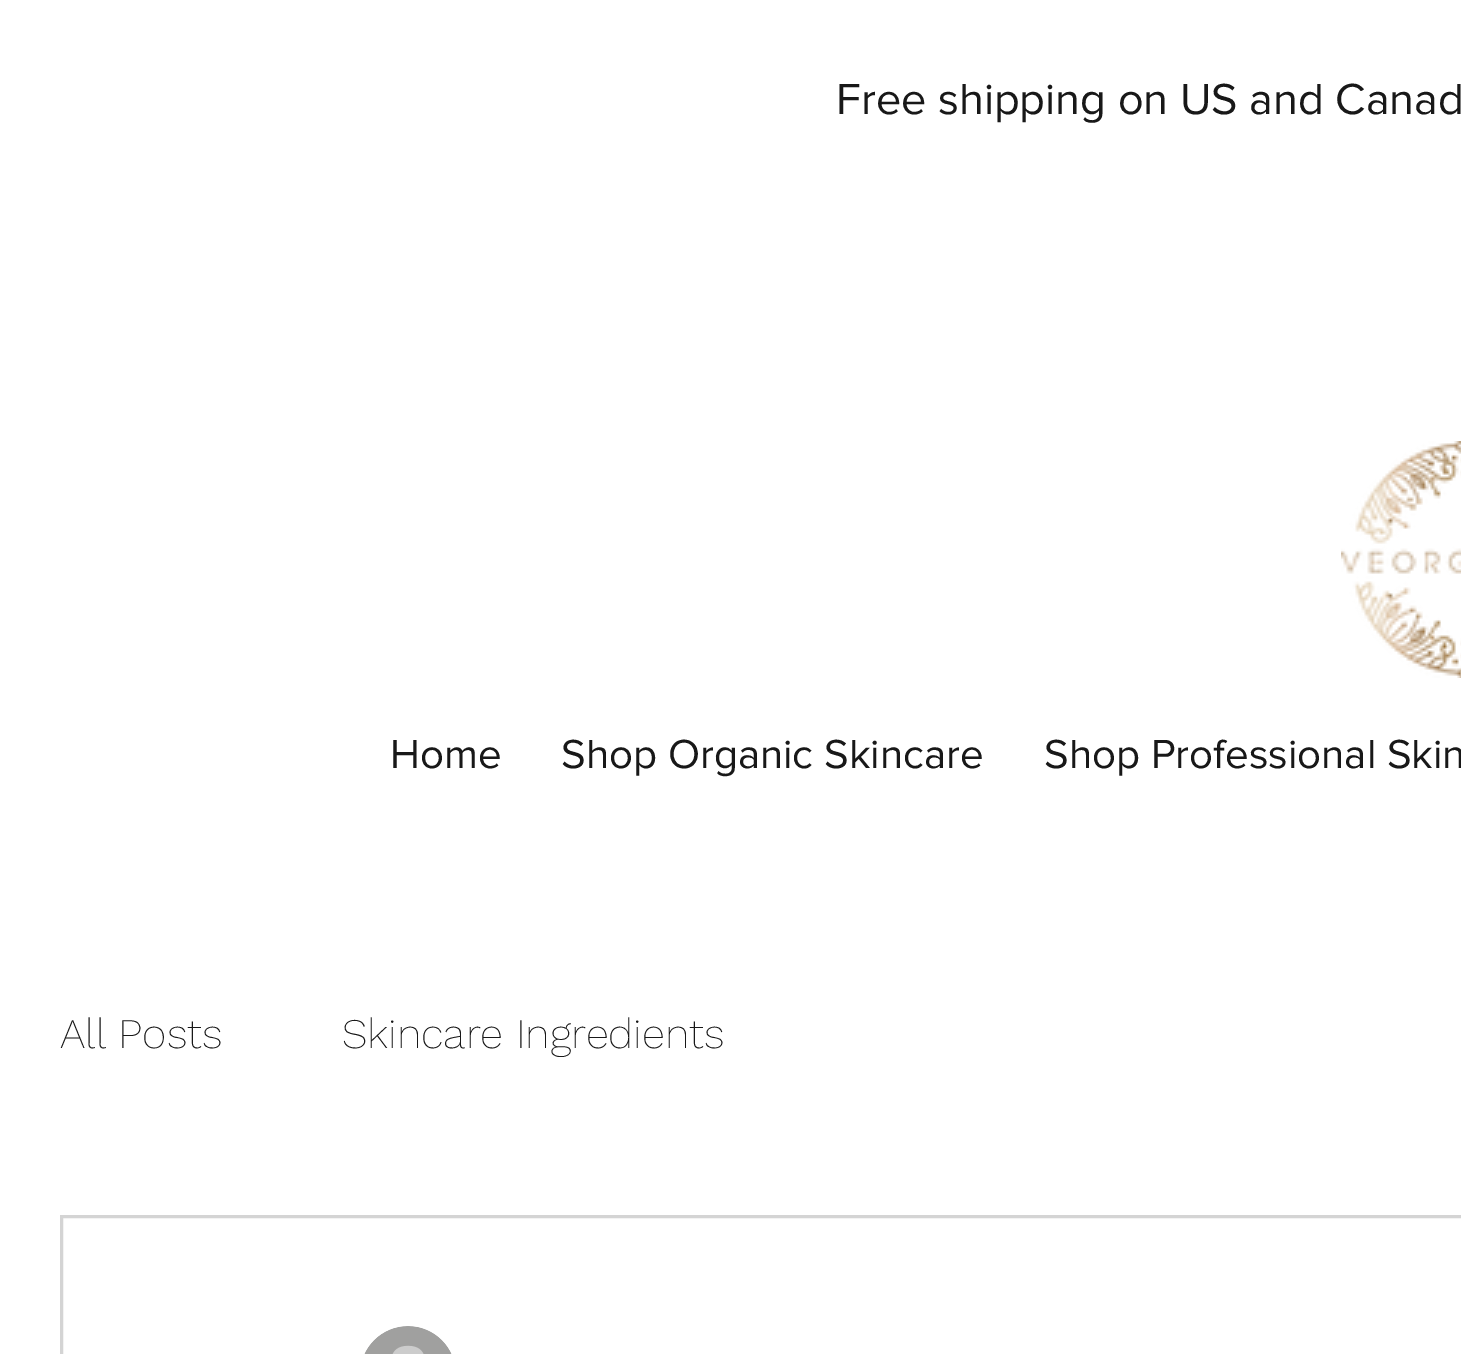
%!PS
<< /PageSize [1461 1354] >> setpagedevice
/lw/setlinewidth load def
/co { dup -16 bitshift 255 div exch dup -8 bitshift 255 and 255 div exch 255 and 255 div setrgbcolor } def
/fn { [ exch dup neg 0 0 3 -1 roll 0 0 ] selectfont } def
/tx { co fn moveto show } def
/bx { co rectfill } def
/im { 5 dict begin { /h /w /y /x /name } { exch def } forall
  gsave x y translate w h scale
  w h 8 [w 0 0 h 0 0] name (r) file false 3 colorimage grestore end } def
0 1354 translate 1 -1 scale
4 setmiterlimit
0 0 1461 1354 16#FFFFFF bx
(media/1.raw) 1341 441 120 237 im
16#D4D4D4 co
3 lw
61.5 1216.5 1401 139 rectstroke
(media/2.raw) 364 1326 88 28 im
(Free shipping on US and Canad) 836 114 /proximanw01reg-Regular 45 16#181818 tx
(Home) 390 768 /proximanw01reg-Regular 42 16#181818 tx
(Shop Organic Skincare) 561 768 /proximanw01reg-Regular 42 16#181818 tx
(Shop Professional Skin) 1044 768 /proximanw01reg-Regular 42 16#181818 tx
(All Posts) 60 1048 /WorkSans-ExtraLight 42 16#181818 tx
(Skincare Ingredients) 342 1048 /WorkSans-ExtraLight 42 16#181818 tx
showpage
